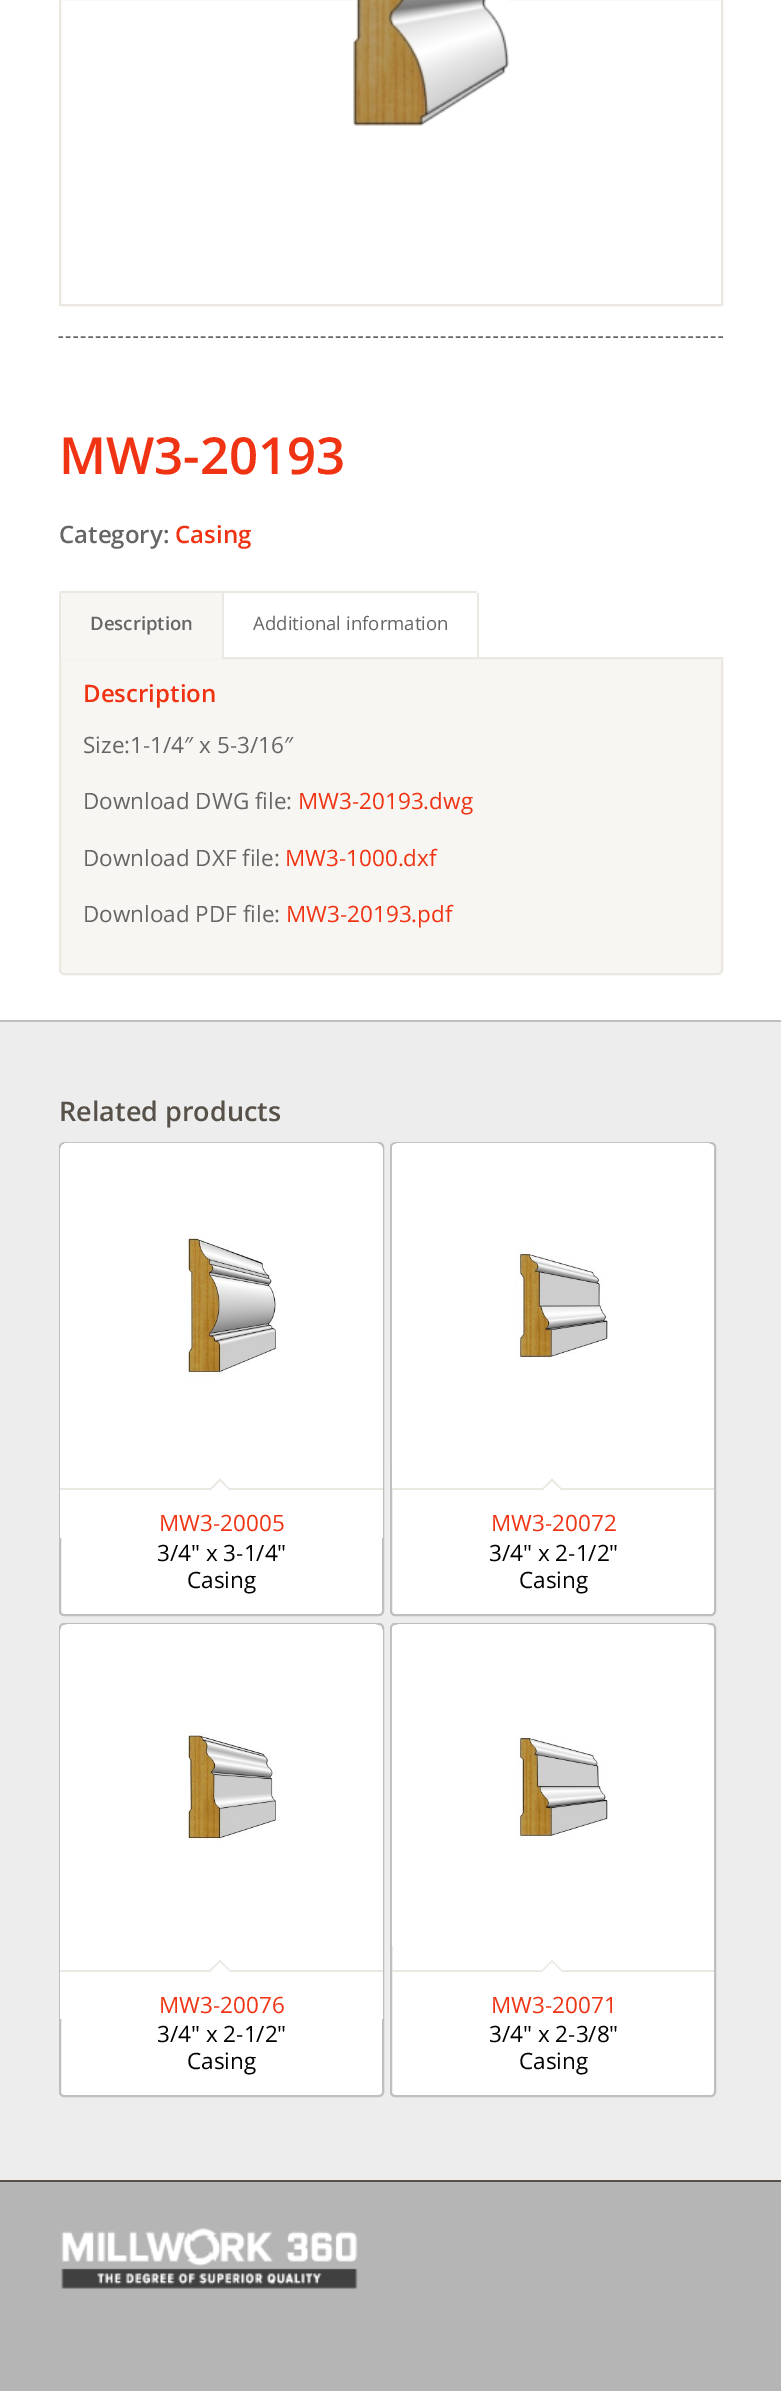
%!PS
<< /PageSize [781 2391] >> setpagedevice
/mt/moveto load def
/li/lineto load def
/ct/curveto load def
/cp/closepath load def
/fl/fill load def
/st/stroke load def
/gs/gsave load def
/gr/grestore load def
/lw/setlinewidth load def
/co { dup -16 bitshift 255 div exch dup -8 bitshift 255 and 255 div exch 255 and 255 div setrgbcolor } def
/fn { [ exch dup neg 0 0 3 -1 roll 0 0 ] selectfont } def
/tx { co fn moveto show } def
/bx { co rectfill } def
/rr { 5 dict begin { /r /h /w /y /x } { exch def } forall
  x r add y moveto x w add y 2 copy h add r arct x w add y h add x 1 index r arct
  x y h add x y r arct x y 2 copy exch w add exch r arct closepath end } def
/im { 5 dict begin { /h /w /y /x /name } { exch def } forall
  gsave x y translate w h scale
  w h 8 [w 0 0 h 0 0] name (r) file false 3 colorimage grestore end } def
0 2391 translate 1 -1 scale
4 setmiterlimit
0 0 781 2391 16#FFFFFF bx
16#EBE8E2 co
2 lw
60 -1 662 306 rectstroke
(media/1.raw) 353 0 156 126 im
16#666666 co
1.5 lw
[4.5 3] 0 setdash
58.5 337 mt 723 337 li st
16#F8F6F2 co
60 658 mt 722 658 li 722 970 li 722 972 720 974 718 974 ct 64 974 li 62 974 60 972 60 970 ct cp gs fl gr
16#EBE8E2 co
2 lw
[] 0 setdash
st
59 591 163 68 16#F8F6F2 bx
222 591 255 2 16#EBE8E2 bx
60 591 164 2 16#EBE8E2 bx
222 591 2 68 16#EBE8E2 bx
59 593 2 66 16#EBE8E2 bx
477 593 2 66 16#EBE8E2 bx
0 1022 781 1158 16#EDEDED bx
0 1020 781 2 16#BFBFBF bx
16#FFFFFF co
60 1143 323 472 4 rr gs fl gr
16#BFBFBF co
st
16#FFFFFF co
68 1143 mt 375 1143 li 379.5 1143 383 1146.5 383 1151 ct 383 1488 li 60 1488 li 60 1151 li 60 1146.5 63.5 1143 68 1143 ct cp fl
(media/2.raw) 60 1142 319 238 im
60 1490 323 48 16#FFFFFF bx
60 1488 323 2 16#EBE8E2 bx
16#FFFFFF co
220 1478.5 mt 230.5 1489.5 li 220 1500 li 209 1489.5 li cp fl
16#EBE8E2 co
220 1478.5 mt 230.5 1489.5 li 229.5 1490.5 li 219 1480 li cp fl
220 1478.5 mt 221 1480 li 210.5 1490.5 li 209 1489.5 li cp fl
16#FFFFFF co
391 1143 324 472 4 rr gs fl gr
16#BFBFBF co
st
16#FFFFFF co
400 1143 mt 706 1143 li 710.5 1143 714 1146.5 714 1151 ct 714 1488 li 392 1488 li 392 1151 li 392 1146.5 395.5 1143 400 1143 ct cp fl
(media/3.raw) 391 1142 319 323 im
392 1488 322 2 16#EBE8E2 bx
16#FFFFFF co
552 1478.5 mt 562.5 1489.5 li 552 1500 li 541.5 1489.5 li cp fl
16#EBE8E2 co
552 1478.5 mt 562.5 1489.5 li 561.5 1490.5 li 551 1480 li cp fl
552 1478.5 mt 553 1480 li 542.5 1490.5 li 541.5 1489.5 li cp fl
16#FFFFFF co
60 1624 323 472 4 rr gs fl gr
16#BFBFBF co
st
16#FFFFFF co
68 1625 mt 375 1625 li 379.5 1625 383 1628.5 383 1633 ct 383 1970 li 60 1970 li 60 1633 li 60 1628.5 63.5 1625 68 1625 ct cp fl
(media/4.raw) 60 1624 318 217 im
60 1972 323 47 16#FFFFFF bx
60 1970 323 2 16#EBE8E2 bx
16#FFFFFF co
220 1960 mt 230.5 1970.5 li 220 1981.5 li 209 1970.5 li cp fl
16#EBE8E2 co
220 1960 mt 230.5 1970.5 li 229.5 1971.5 li 219 1961 li cp fl
220 1960 mt 221 1961 li 210.5 1971.5 li 209 1970.5 li cp fl
16#FFFFFF co
391 1624 324 472 4 rr gs fl gr
16#BFBFBF co
st
(media/5.raw) 391 1624 319 322 im
392 1970 322 2 16#EBE8E2 bx
16#FFFFFF co
552 1960 mt 562.5 1970.5 li 552 1981.5 li 541.5 1970.5 li cp fl
16#EBE8E2 co
552 1960 mt 562.5 1970.5 li 561.5 1971.5 li 551 1961 li cp fl
552 1960 mt 553 1961 li 542.5 1971.5 li 541.5 1970.5 li cp fl
0 2182 781 209 16#B5B5B5 bx
0 2180 781 2 16#575149 bx
(media/6.raw) 61 2228 297 61 im
(MW3-20193) 59 474 /OpenSans-SemiBold 51 16#F03312 tx
(Category:) 59 543 /OpenSans-SemiBold 24 16#666666 tx
(Casing) 175 543 /OpenSans-SemiBold 24 16#F03312 tx
(Description) 90 630 /OpenSans-SemiBold 18.6 16#666666 tx
(Additional information) 253 630 /OpenSans-Regular 18.6 16#666666 tx
(Description) 83 702 /OpenSans-SemiBold 24 16#F03312 tx
(Size:1-1/4″ x 5-3/16″) 83 753 /OpenSans-Regular 22.5 16#666666 tx
(Download DWG file:) 83 809 /OpenSans-Regular 22.5 16#666666 tx
(MW3-20193.dwg) 298 809 /OpenSans-Regular 22.5 16#F03312 tx
(Download DXF file:) 83 866 /OpenSans-Regular 22.5 16#666666 tx
(MW3-1000.dxf) 285 866 /OpenSans-Regular 22.5 16#F03312 tx
(Download PDF file:) 83 922 /OpenSans-Regular 22.5 16#666666 tx
(MW3-20193.pdf) 286 922 /OpenSans-Regular 22.5 16#F03312 tx
(Related products) 59 1121 /OpenSans-SemiBold 27 16#575149 tx
(MW3-20005) 159 1531 /OpenSans-Regular 22.5 16#F03312 tx
(3/4" x 3-1/4") 157 1561 /OpenSans-Regular 22.5 16#000000 tx
(Casing) 187 1588 /OpenSans-Regular 22.5 16#000000 tx
(MW3-20072) 491 1531 /OpenSans-Regular 22.5 16#F03312 tx
(3/4" x 2-1/2") 489 1561 /OpenSans-Regular 22.5 16#000000 tx
(Casing) 519 1588 /OpenSans-Regular 22.5 16#000000 tx
(MW3-20076) 159 2013 /OpenSans-Regular 22.5 16#F03312 tx
(3/4" x 2-1/2") 157 2042 /OpenSans-Regular 22.5 16#000000 tx
(Casing) 187 2069 /OpenSans-Regular 22.5 16#000000 tx
(MW3-20071) 491 2013 /OpenSans-Regular 22.5 16#F03312 tx
(3/4" x 2-3/8") 489 2042 /OpenSans-Regular 22.5 16#000000 tx
(Casing) 519 2069 /OpenSans-Regular 22.5 16#000000 tx
showpage
